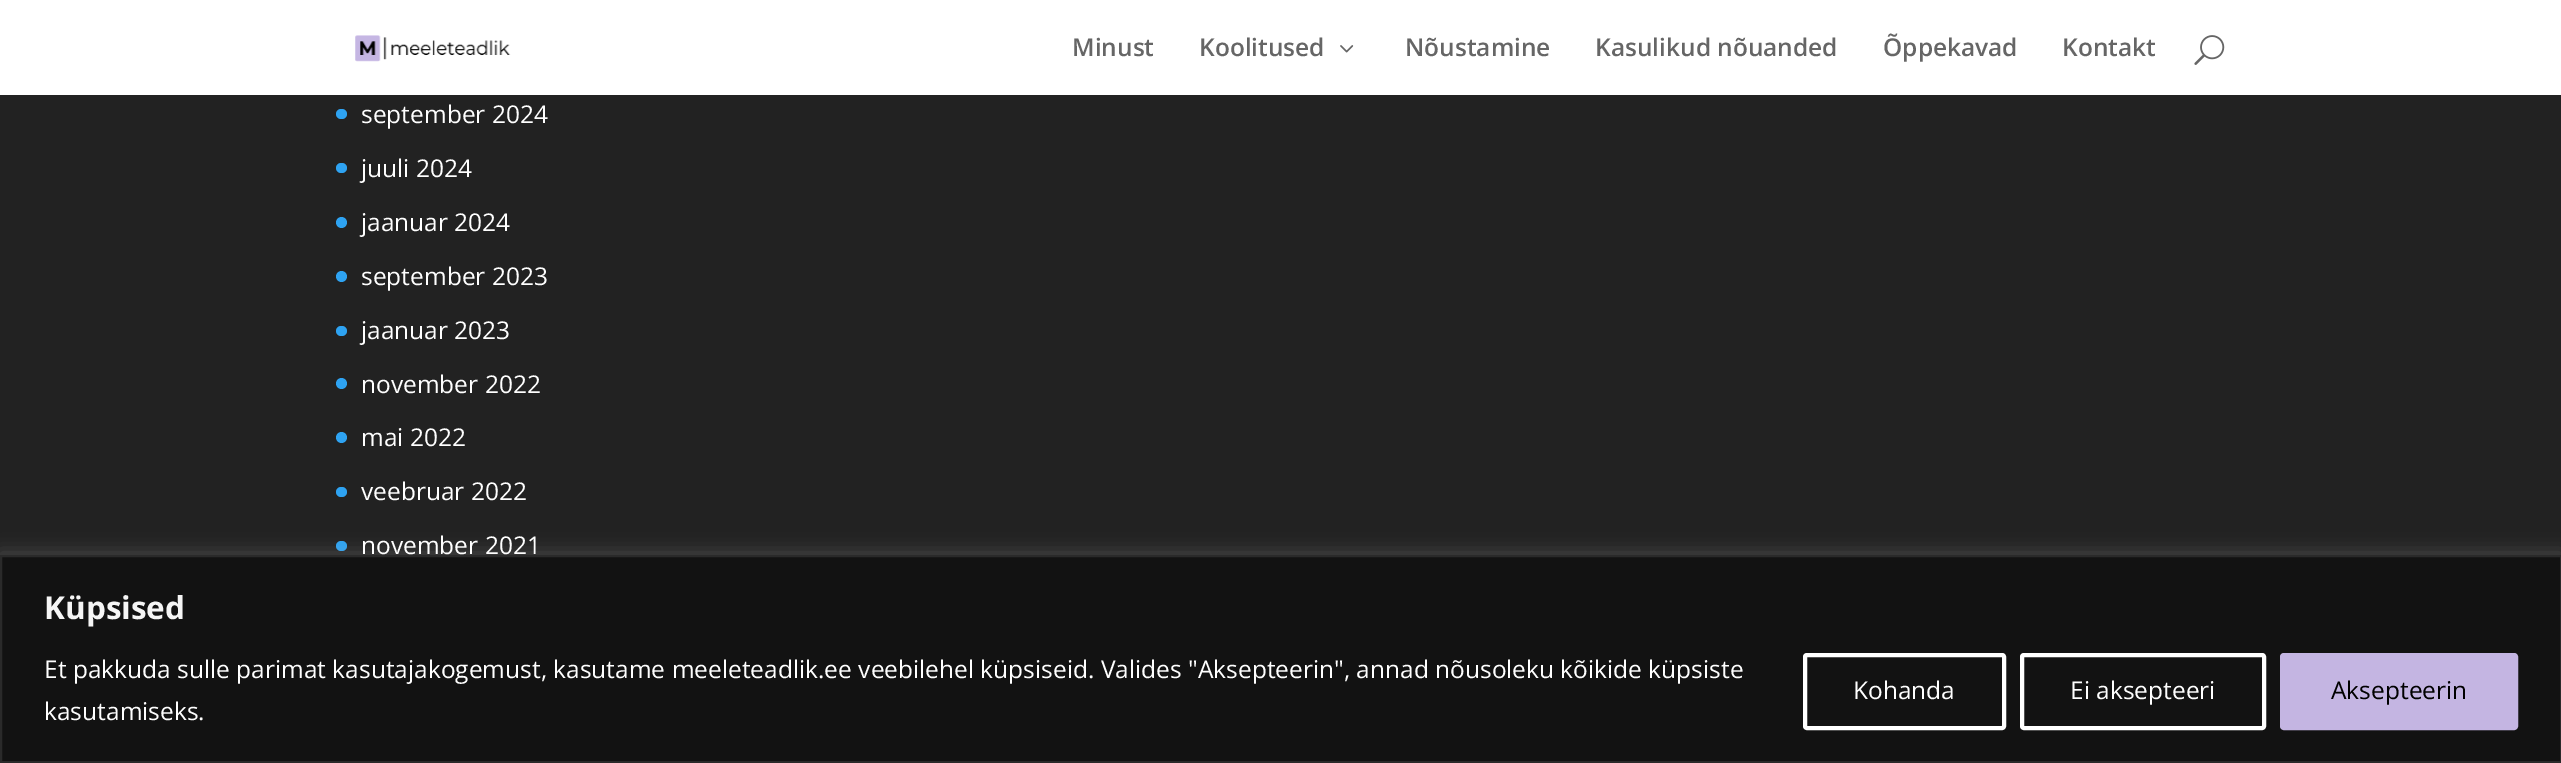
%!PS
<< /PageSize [2561 763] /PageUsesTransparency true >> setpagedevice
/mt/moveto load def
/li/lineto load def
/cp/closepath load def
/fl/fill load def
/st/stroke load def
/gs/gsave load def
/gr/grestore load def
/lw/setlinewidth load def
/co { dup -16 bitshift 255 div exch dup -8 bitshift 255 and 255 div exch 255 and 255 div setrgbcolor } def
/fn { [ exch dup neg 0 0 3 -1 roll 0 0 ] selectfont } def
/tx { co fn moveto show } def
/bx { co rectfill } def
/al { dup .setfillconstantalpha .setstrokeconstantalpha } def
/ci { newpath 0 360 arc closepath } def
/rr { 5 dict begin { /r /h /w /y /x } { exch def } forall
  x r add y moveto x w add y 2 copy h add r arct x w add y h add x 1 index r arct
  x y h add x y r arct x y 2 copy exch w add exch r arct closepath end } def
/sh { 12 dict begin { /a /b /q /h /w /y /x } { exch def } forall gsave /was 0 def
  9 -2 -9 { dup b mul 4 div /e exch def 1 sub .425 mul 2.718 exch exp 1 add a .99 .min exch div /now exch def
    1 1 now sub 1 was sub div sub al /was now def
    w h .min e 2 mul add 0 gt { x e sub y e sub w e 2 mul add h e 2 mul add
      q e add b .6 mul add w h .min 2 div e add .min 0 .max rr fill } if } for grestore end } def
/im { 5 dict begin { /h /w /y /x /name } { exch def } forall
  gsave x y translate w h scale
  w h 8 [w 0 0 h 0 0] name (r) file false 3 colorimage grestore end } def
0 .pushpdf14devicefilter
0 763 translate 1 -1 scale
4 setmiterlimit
0 0 2561 763 16#222222 bx
0 0 2561 95 16#FFFFFF bx
(media/1.raw) 355 35 156 27 im
(media/2.raw) 1340 45 14 8 im
(media/3.raw) 2194 35 31 30 im
16#2EA3F2 co
336 109 11 10 5 rr fl
336 163 11 10 5 rr fl
341.5 222.5 5.5 ci fl
341.5 276.5 5.5 ci fl
336 326 11 10 5 rr fl
341.5 383.5 5.5 ci fl
341.5 437.5 5.5 ci fl
336 487 11 10 5 rr fl
336 541 11 10 5 rr fl
16#ACABAB co
0 553 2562 208 0 9 .3 sh
16#121212 co
1 556 mt 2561 556 li 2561 762 li 1 762 li cp gs fl gr
16#2A2A2A co
2 lw
st
16#FFFFFF co
4 lw
1805 655 199 73 2 rr st
2022 655 242 73 2 rr st
16#C4B5E2 co
2282 655 234 73 2 rr gs fl gr
st
(Minust) 1072 56 /OpenSans-SemiBold 24.5 16#666666 tx
(Koolitused) 1199 56 /OpenSans-SemiBold 24.5 16#666666 tx
(Nõustamine) 1405 56 /OpenSans-SemiBold 24.5 16#666666 tx
(Kasulikud nõuanded) 1595 56 /OpenSans-SemiBold 24.5 16#666666 tx
(Õppekavad) 1883 56 /OpenSans-SemiBold 24.5 16#666666 tx
(Kontakt) 2062 56 /OpenSans-SemiBold 24.5 16#666666 tx
(september 2024) 361 123 /OpenSans-Regular 24.5 16#FFFFFF tx
(juuli 2024) 361 177 /OpenSans-Regular 24.5 16#FFFFFF tx
(jaanuar 2024) 361 231 /OpenSans-Regular 24.5 16#FFFFFF tx
(september 2023) 361 285 /OpenSans-Regular 24.5 16#FFFFFF tx
(jaanuar 2023) 361 339 /OpenSans-Regular 24.5 16#FFFFFF tx
(november 2022) 361 393 /OpenSans-Regular 24.5 16#FFFFFF tx
(mai 2022) 361 446 /OpenSans-Regular 24.5 16#FFFFFF tx
(veebruar 2022) 361 500 /OpenSans-Regular 24.5 16#FFFFFF tx
(november 2021) 361 554 /OpenSans-Regular 24.5 16#FFFFFF tx
(Küpsised) 44 619 /OpenSans-Bold 31.5 16#F5F5F5 tx
(Et pakkuda sulle parimat kasutajakogemust, kasutame meeleteadlik.ee veebilehel küpsiseid. Valides "Aksepteerin", annad nõusoleku kõikide küpsiste) 44 678 /OpenSans-Regular 24.5 16#FFFFFF tx
(kasutamiseks.) 44 720 /OpenSans-Regular 24.5 16#FFFFFF tx
(Kohanda) 1853 699 /OpenSans-Regular 24.5 16#FFFFFF tx
(Ei aksepteeri) 2070 699 /OpenSans-Regular 24.5 16#FFFFFF tx
(Aksepteerin) 2331 699 /OpenSans-Regular 24.5 16#000000 tx
.poppdf14devicefilter showpage
